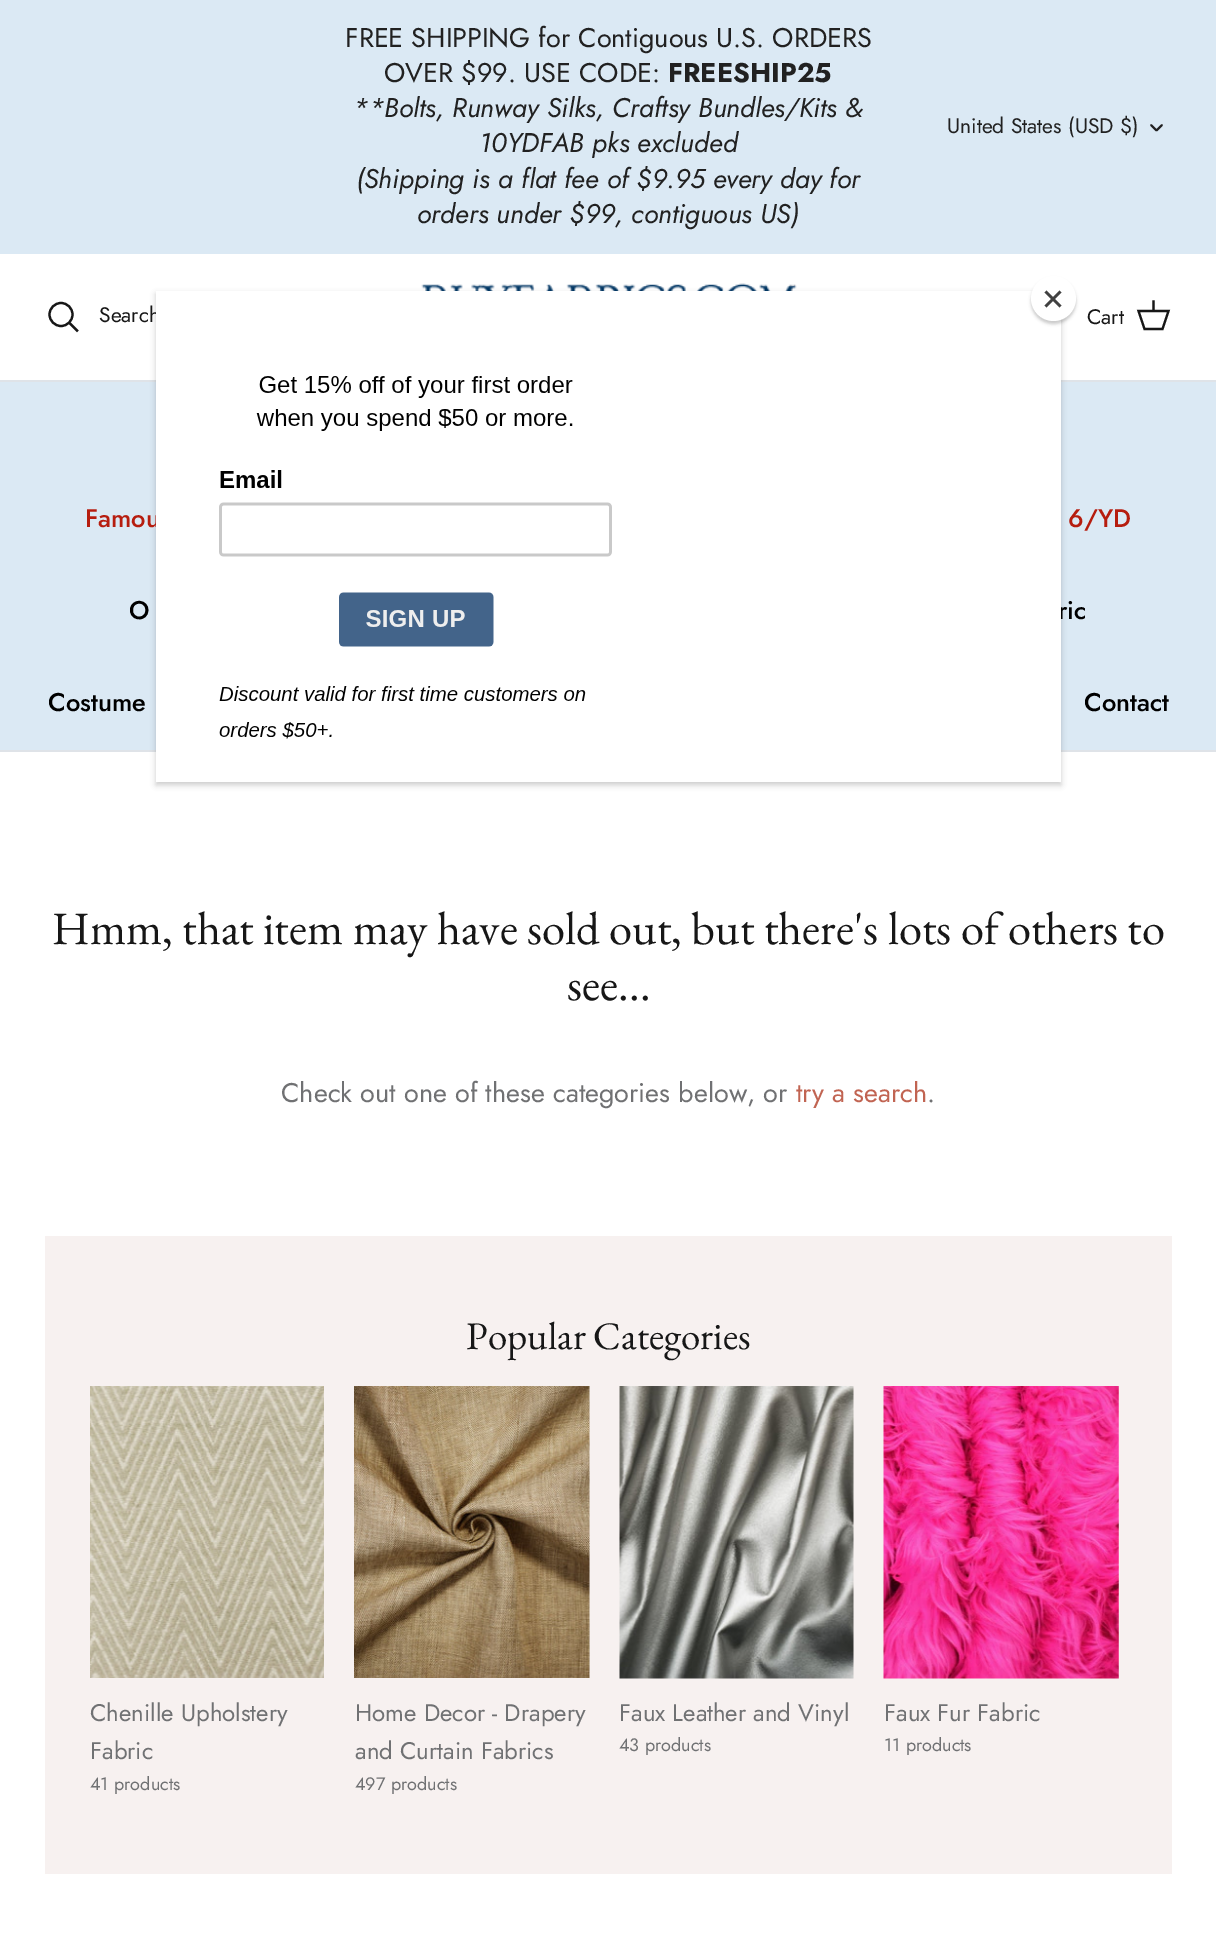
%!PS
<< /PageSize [1216 1943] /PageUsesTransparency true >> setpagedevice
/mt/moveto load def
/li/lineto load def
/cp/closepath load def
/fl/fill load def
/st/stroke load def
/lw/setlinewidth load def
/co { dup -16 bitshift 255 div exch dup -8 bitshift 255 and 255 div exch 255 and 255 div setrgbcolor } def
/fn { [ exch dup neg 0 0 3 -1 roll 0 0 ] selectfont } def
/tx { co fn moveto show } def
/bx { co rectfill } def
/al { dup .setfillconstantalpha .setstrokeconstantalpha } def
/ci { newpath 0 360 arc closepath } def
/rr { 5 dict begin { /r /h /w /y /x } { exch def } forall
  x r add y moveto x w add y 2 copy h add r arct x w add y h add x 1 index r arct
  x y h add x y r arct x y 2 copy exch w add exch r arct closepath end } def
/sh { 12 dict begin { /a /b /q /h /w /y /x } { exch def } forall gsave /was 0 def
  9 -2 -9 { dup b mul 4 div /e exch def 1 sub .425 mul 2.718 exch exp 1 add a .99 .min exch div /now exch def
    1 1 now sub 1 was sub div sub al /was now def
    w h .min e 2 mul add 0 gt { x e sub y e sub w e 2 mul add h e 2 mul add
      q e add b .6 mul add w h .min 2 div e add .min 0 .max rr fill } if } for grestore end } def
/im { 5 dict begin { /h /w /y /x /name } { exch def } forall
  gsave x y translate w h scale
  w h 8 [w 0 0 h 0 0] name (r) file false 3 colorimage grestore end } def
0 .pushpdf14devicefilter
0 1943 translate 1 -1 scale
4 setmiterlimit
0 0 1216 1943 16#FFFFFF bx
0 0 1216 254 16#DBE9F4 bx
16#212121 co
1.8 lw
1 setlinecap
1 setlinejoin
1151 125 mt 1156.5 130.5 li 1162 125 li st
0 380 1216 2 16#DFE3E8 bx
(media/2.raw) 421 283 376 8 im
0 750 1216 2 16#DFE3E8 bx
0 382 1216 368 16#DBE9F4 bx
16#000000 co
156 294 905 491 0 3 .2 sh
16#171717 co
2.2 lw
0 setlinecap
0 setlinejoin
61 314.5 11.5 ci st
2 setlinecap
70.5 324 mt 77 330.5 li st
0 setlinecap
1138.5 311 mt 1168.5 311 li 1162.5 329 li 1144.5 329 li cp st
2 setlinecap
1153.5 310.5 mt 1153.5 301.5 li st
45 1236 1127 638 16#F7F1F0 bx
(media/3.raw) 90 1386 234 292 im
(media/4.raw) 354 1386 236 292 im
(media/5.raw) 619 1386 235 293 im
(media/6.raw) 883 1386 236 293 im
(FREE SHIPPING for Contiguous U.S. ORDERS) 345 47 /Jost-Regular 27 16#212121 tx
(OVER $99. USE CODE:) 384 82 /Jost-Regular 27 16#212121 tx
(FREESHIP25) 668 82 /Jost-Bold 27 16#212121 tx
(**Bolts, Runway Silks, Craftsy Bundles/Kits &) 353 117 /Jost-Italic 27 16#212121 tx
(10YDFAB pks excluded) 479 152 /Jost-Italic 27 16#212121 tx
(\(Shipping is a flat fee of $9.95 every day for) 356 188 /Jost-Italic 27 16#212121 tx
(orders under $99, contiguous US\)) 417 223 /Jost-Italic 27 16#212121 tx
(United States \(USD $\)) 947 133 /Jost-Regular 21 16#212121 tx
(Search) 99 322 /Jost-Regular 21 16#171717 tx
(Cart) 1087 324 /Jost-Regular 21 16#171717 tx
(Famou) 85 527 /Jost-Medium 25.5 16#B61D0F tx
(6/YD) 1068 527 /Jost-Medium 25.5 16#B61D0F tx
(O) 129 619 /Jost-Medium 25.5 16#000000 tx
(ric) 1058 619 /Jost-Medium 25.5 16#000000 tx
(media/1.raw) 156 291 905 491 im
1031 279 45 45 22.5 1.5 .2 sh
16#FFFFFF co
1053.5 298.5 22.5 ci fl
16#414141 co
1059.5 290.5 mt 1061.5 292.5 li 1046.5 307.5 li 1044.5 305.5 li cp fl
1044.5 292.5 mt 1046.5 290.5 li 1061.5 305.5 li 1059.5 307.5 li cp fl
(Costume) 48 711 /Jost-Medium 25.5 16#000000 tx
(Contact) 1084 711 /Jost-Medium 25.5 16#000000 tx
(Hmm, that item may have sold out, but there's lots of others to) 52 944 /EBGaramond-Regular 46.5 16#171717 tx
(see...) 567 1000 /EBGaramond-Regular 46.5 16#171717 tx
(Check out one of these categories below, or) 281 1102 /Jost-Regular 27 16#707173 tx
(try a search) 796 1102 /Jost-Regular 27 16#C16452 tx
(.) 927 1102 /Jost-Regular 27 16#707173 tx
(Popular Categories) 466 1349 /EBGaramond-Regular 39 16#171717 tx
(Chenille Upholstery) 90 1721 /Jost-Regular 24 16#707173 tx
(Fabric) 90 1759 /Jost-Regular 24 16#707173 tx
(41 products) 90 1790 /Jost-Regular 18 16#707173 tx
(Home Decor - Drapery) 355 1721 /Jost-Regular 24 16#707173 tx
(and Curtain Fabrics) 355 1759 /Jost-Regular 24 16#707173 tx
(497 products) 355 1790 /Jost-Regular 18 16#707173 tx
(Faux Leather and Vinyl) 619 1721 /Jost-Regular 24 16#707173 tx
(43 products) 619 1751 /Jost-Regular 18 16#707173 tx
(Faux Fur Fabric) 884 1721 /Jost-Regular 24 16#707173 tx
(11 products) 884 1751 /Jost-Regular 18 16#707173 tx
.poppdf14devicefilter showpage
